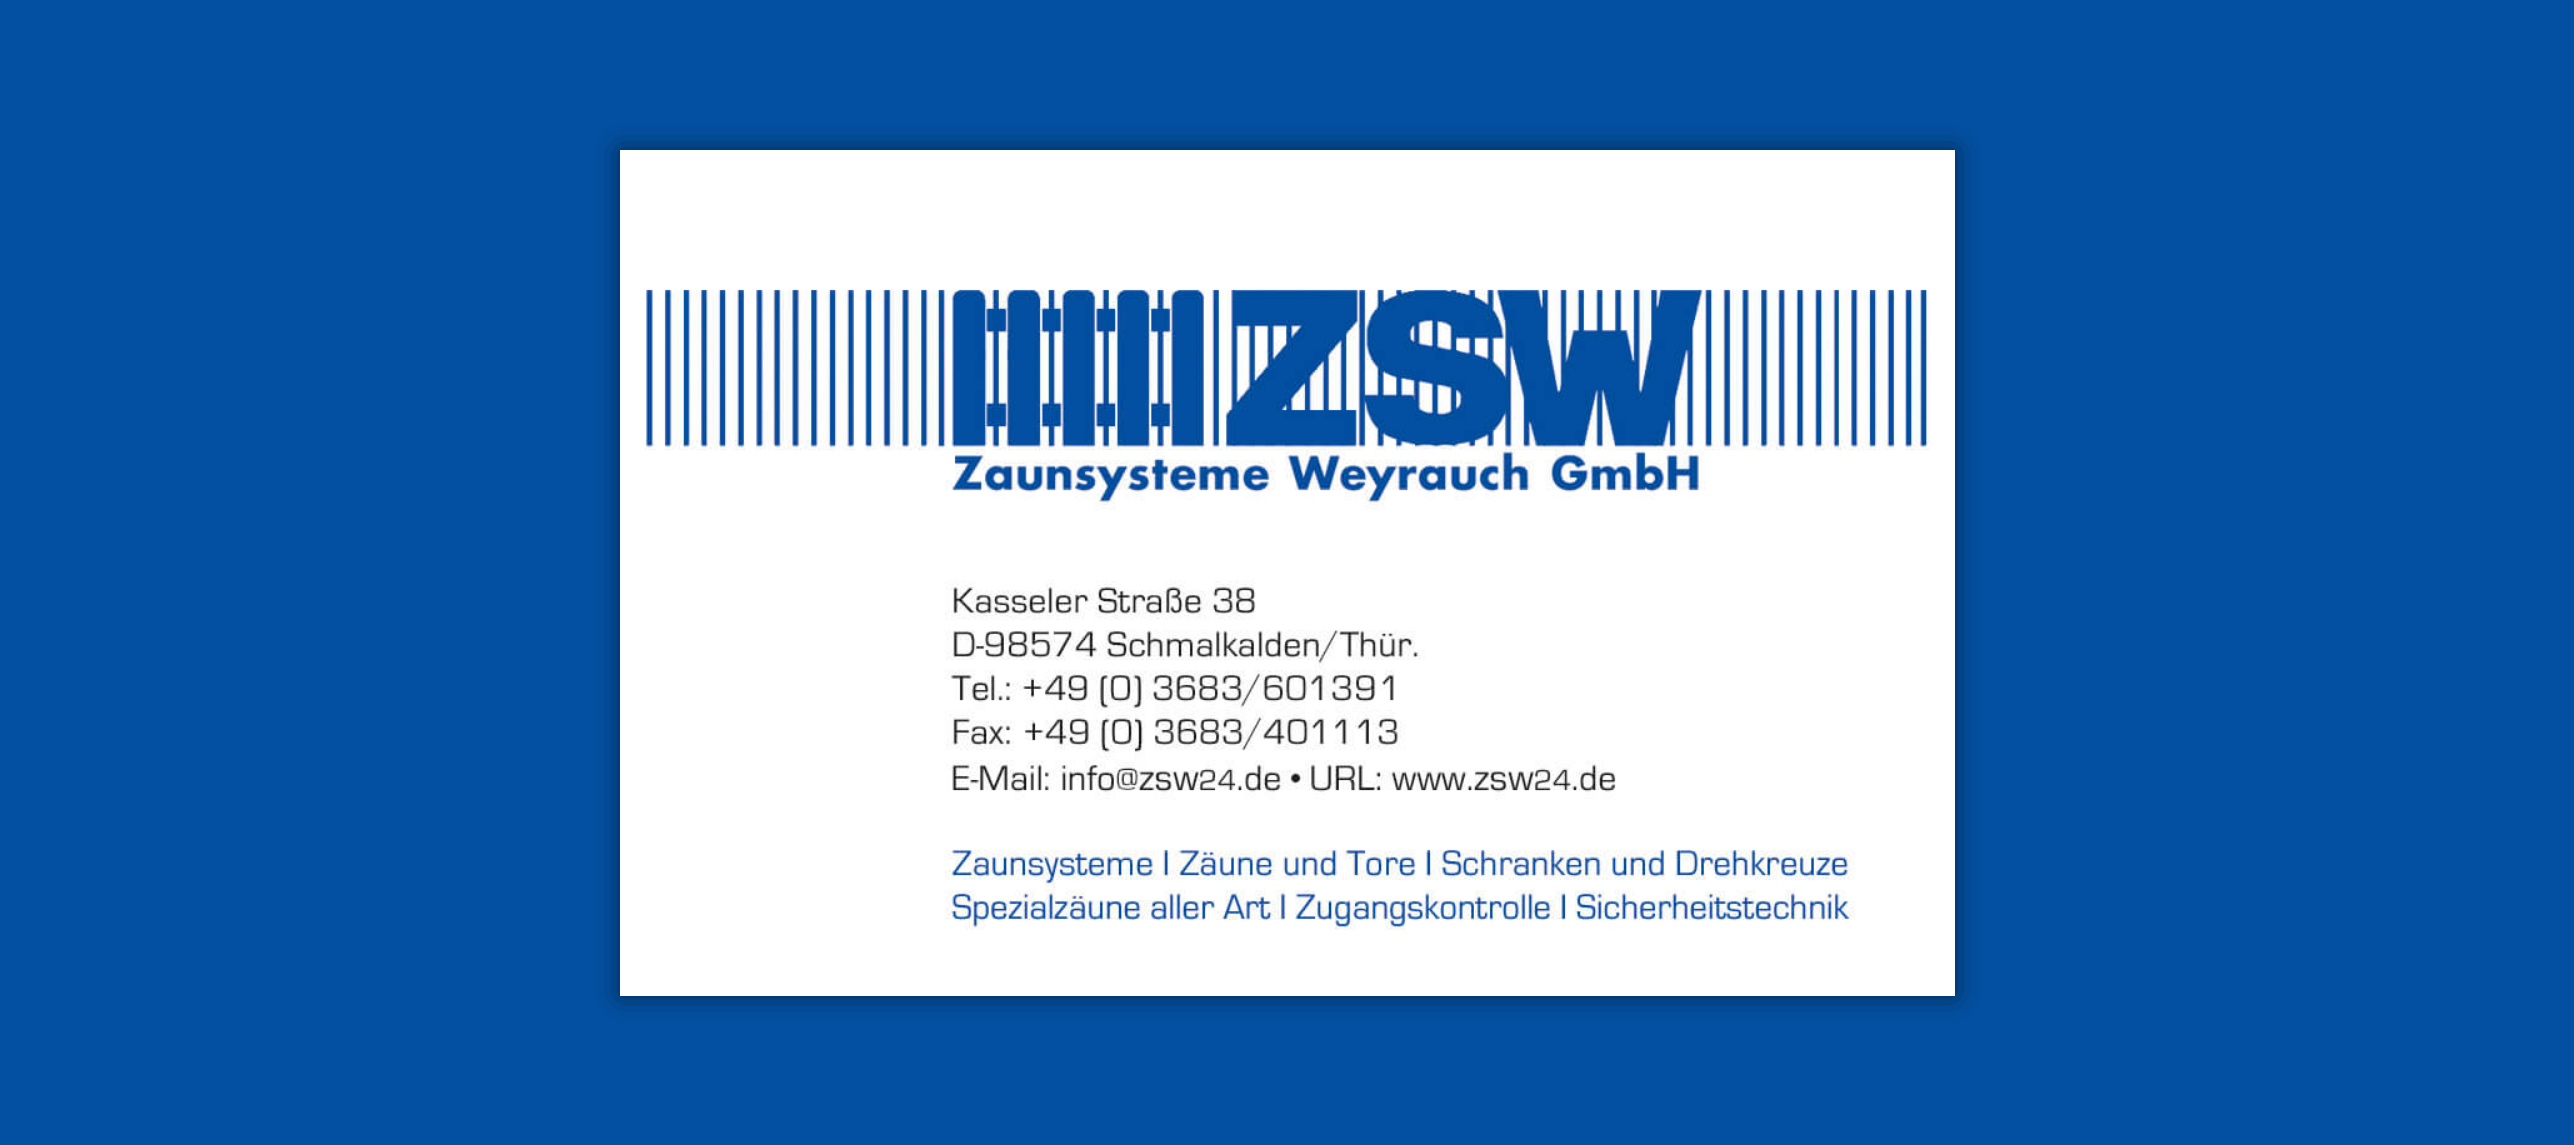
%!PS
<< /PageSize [2574 1145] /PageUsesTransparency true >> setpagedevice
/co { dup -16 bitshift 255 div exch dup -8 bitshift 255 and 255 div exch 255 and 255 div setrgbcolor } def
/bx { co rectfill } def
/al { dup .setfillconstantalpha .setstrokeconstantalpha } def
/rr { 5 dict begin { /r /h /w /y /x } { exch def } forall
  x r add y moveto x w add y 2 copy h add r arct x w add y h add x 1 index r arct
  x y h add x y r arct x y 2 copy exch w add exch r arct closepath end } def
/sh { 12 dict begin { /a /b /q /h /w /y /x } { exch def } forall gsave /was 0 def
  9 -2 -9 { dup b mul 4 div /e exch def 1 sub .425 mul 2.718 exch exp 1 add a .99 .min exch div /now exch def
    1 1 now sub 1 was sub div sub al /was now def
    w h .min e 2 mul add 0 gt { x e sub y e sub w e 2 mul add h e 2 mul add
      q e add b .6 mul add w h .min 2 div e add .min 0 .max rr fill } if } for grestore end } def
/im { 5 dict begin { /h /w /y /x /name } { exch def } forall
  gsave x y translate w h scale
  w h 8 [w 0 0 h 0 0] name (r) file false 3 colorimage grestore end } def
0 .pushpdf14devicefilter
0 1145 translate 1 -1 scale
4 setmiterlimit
0 0 2574 1145 16#0350A2 bx
16#000000 co
620 150 1335 846 0 12.5 .5 sh
620 150 1335 846 16#FFFFFF bx
(media/1.raw) 645 289 1285 641 im
.poppdf14devicefilter showpage
